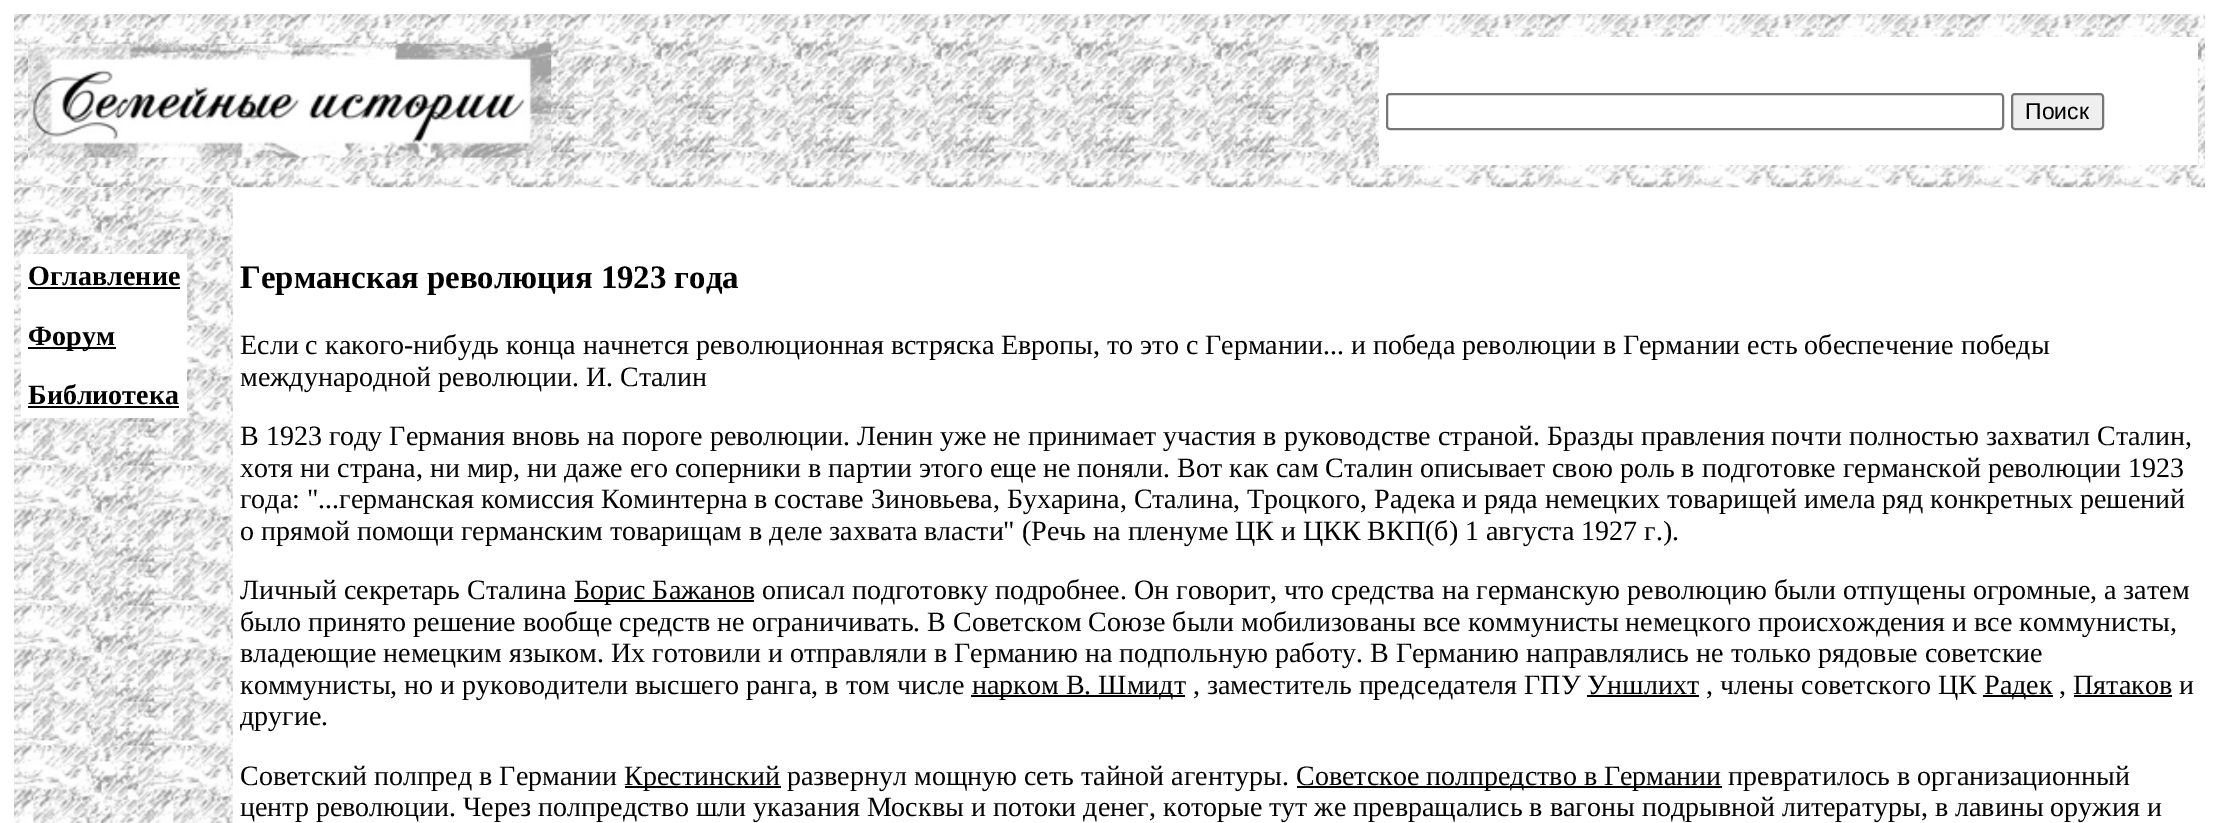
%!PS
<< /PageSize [2219 823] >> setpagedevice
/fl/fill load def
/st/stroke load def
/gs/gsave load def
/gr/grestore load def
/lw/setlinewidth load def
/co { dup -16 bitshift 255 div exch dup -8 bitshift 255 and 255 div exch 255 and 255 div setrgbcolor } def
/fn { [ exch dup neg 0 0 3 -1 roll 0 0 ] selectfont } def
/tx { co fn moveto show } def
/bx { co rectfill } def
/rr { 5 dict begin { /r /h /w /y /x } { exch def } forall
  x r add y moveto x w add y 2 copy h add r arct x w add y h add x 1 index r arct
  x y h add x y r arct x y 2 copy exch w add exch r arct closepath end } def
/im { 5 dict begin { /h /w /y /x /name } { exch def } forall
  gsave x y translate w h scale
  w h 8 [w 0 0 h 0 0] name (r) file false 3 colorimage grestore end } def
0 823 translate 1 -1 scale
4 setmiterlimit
0 0 2219 823 16#FFFFFF bx
(media/1.raw) 14 14 2191 174 im
(media/2.raw) 28 43 524 115 im
1379 37 819 128 16#FFFFFF bx
16#767676 co
2 lw
1387 94 616 35 3 rr st
16#EFEFEF co
2012 94 91 35 3 rr gs fl gr
16#767676 co
st
(media/3.raw) 14 187 219 636 im
21 254 166 164 16#FFFFFF bx
28 287 152 2 16#000000 bx
28 347 88 2 16#000000 bx
28 406 151 2 16#000000 bx
574 600 180 2 16#000000 bx
971 695 214 2 16#000000 bx
1983 695 70 2 16#000000 bx
1587 695 112 2 16#000000 bx
2074 695 98 2 16#000000 bx
625 786 156 2 16#000000 bx
1297 786 425 2 16#000000 bx
(Поиск) 2025 119 /LiberationSans-Regular 23 16#000000 tx
(Оглавление) 28 285 /LiberationSerif-Bold 28 16#000000 tx
(Форум) 28 345 /LiberationSerif-Bold 28 16#000000 tx
(Библиотека) 28 404 /LiberationSerif-Bold 28 16#000000 tx
(Германская революция 1923 года) 240 288 /LiberationSerif-Bold 32.75 16#000000 tx
(Если с какого-нибудь конца начнется революционная встряска Европы, то это с Германии... и победа революции в Германии есть обеспечение победы) 240 354 /LiberationSerif-Regular 28 16#000000 tx
(международной революции. И. Сталин) 240 386 /LiberationSerif-Regular 28 16#000000 tx
(В 1923 году Германия вновь на пороге революции. Ленин уже не принимает участия в руководстве страной. Бразды правления почти полностью захватил Сталин,) 240 445 /LiberationSerif-Regular 28 16#000000 tx
(хотя ни страна, ни мир, ни даже его соперники в партии этого еще не поняли. Вот как сам Сталин описывает свою роль в подготовке германской революции 1923) 240 477 /LiberationSerif-Regular 28 16#000000 tx
(года: "...германская комиссия Коминтерна в составе Зиновьева, Бухарина, Сталина, Троцкого, Радека и ряда немецких товарищей имела ряд конкретных решений) 240 508 /LiberationSerif-Regular 28 16#000000 tx
(о прямой помощи германским товарищам в деле захвата власти" \(Речь на пленуме ЦК и ЦКК ВКП\(б\) 1 августа 1927 г.\).) 240 540 /LiberationSerif-Regular 28 16#000000 tx
(Личный секретарь Сталина) 240 599 /LiberationSerif-Regular 28 16#000000 tx
(Борис Бажанов описал подготовку подробнее. Он говорит, что средства на германскую революцию были отпущены огромные, а затем) 574 599 /LiberationSerif-Regular 28 16#000000 tx
(было принято решение вообще средств не ограничивать. В Советском Союзе были мобилизованы все коммунисты немецкого происхождения и все коммунисты,) 240 631 /LiberationSerif-Regular 28 16#000000 tx
(владеющие немецким языком. Их готовили и отправляли в Германию на подпольную работу. В Германию направлялись не только рядовые советские) 240 662 /LiberationSerif-Regular 28 16#000000 tx
(коммунисты, но и руководители высшего ранга, в том числе) 240 694 /LiberationSerif-Regular 28 16#000000 tx
(нарком В. Шмидт , заместитель председателя ГПУ Уншлихт , члены советского ЦК) 972 694 /LiberationSerif-Regular 28 16#000000 tx
(Радек , Пятаков и) 1984 694 /LiberationSerif-Regular 28 16#000000 tx
(другие.) 240 725 /LiberationSerif-Regular 28 16#000000 tx
(Советский полпред в Германии) 240 785 /LiberationSerif-Regular 28 16#000000 tx
(Крестинский развернул мощную сеть тайной агентуры.) 624 785 /LiberationSerif-Regular 28 16#000000 tx
(Советское полпредство в Германии превратилось в организационный) 1296 785 /LiberationSerif-Regular 28 16#000000 tx
(центр революции. Через полпредство шли указания Москвы и потоки денег, которые тут же превращались в вагоны подрывной литературы, в лавины оружия и) 240 816 /LiberationSerif-Regular 28 16#000000 tx
showpage
